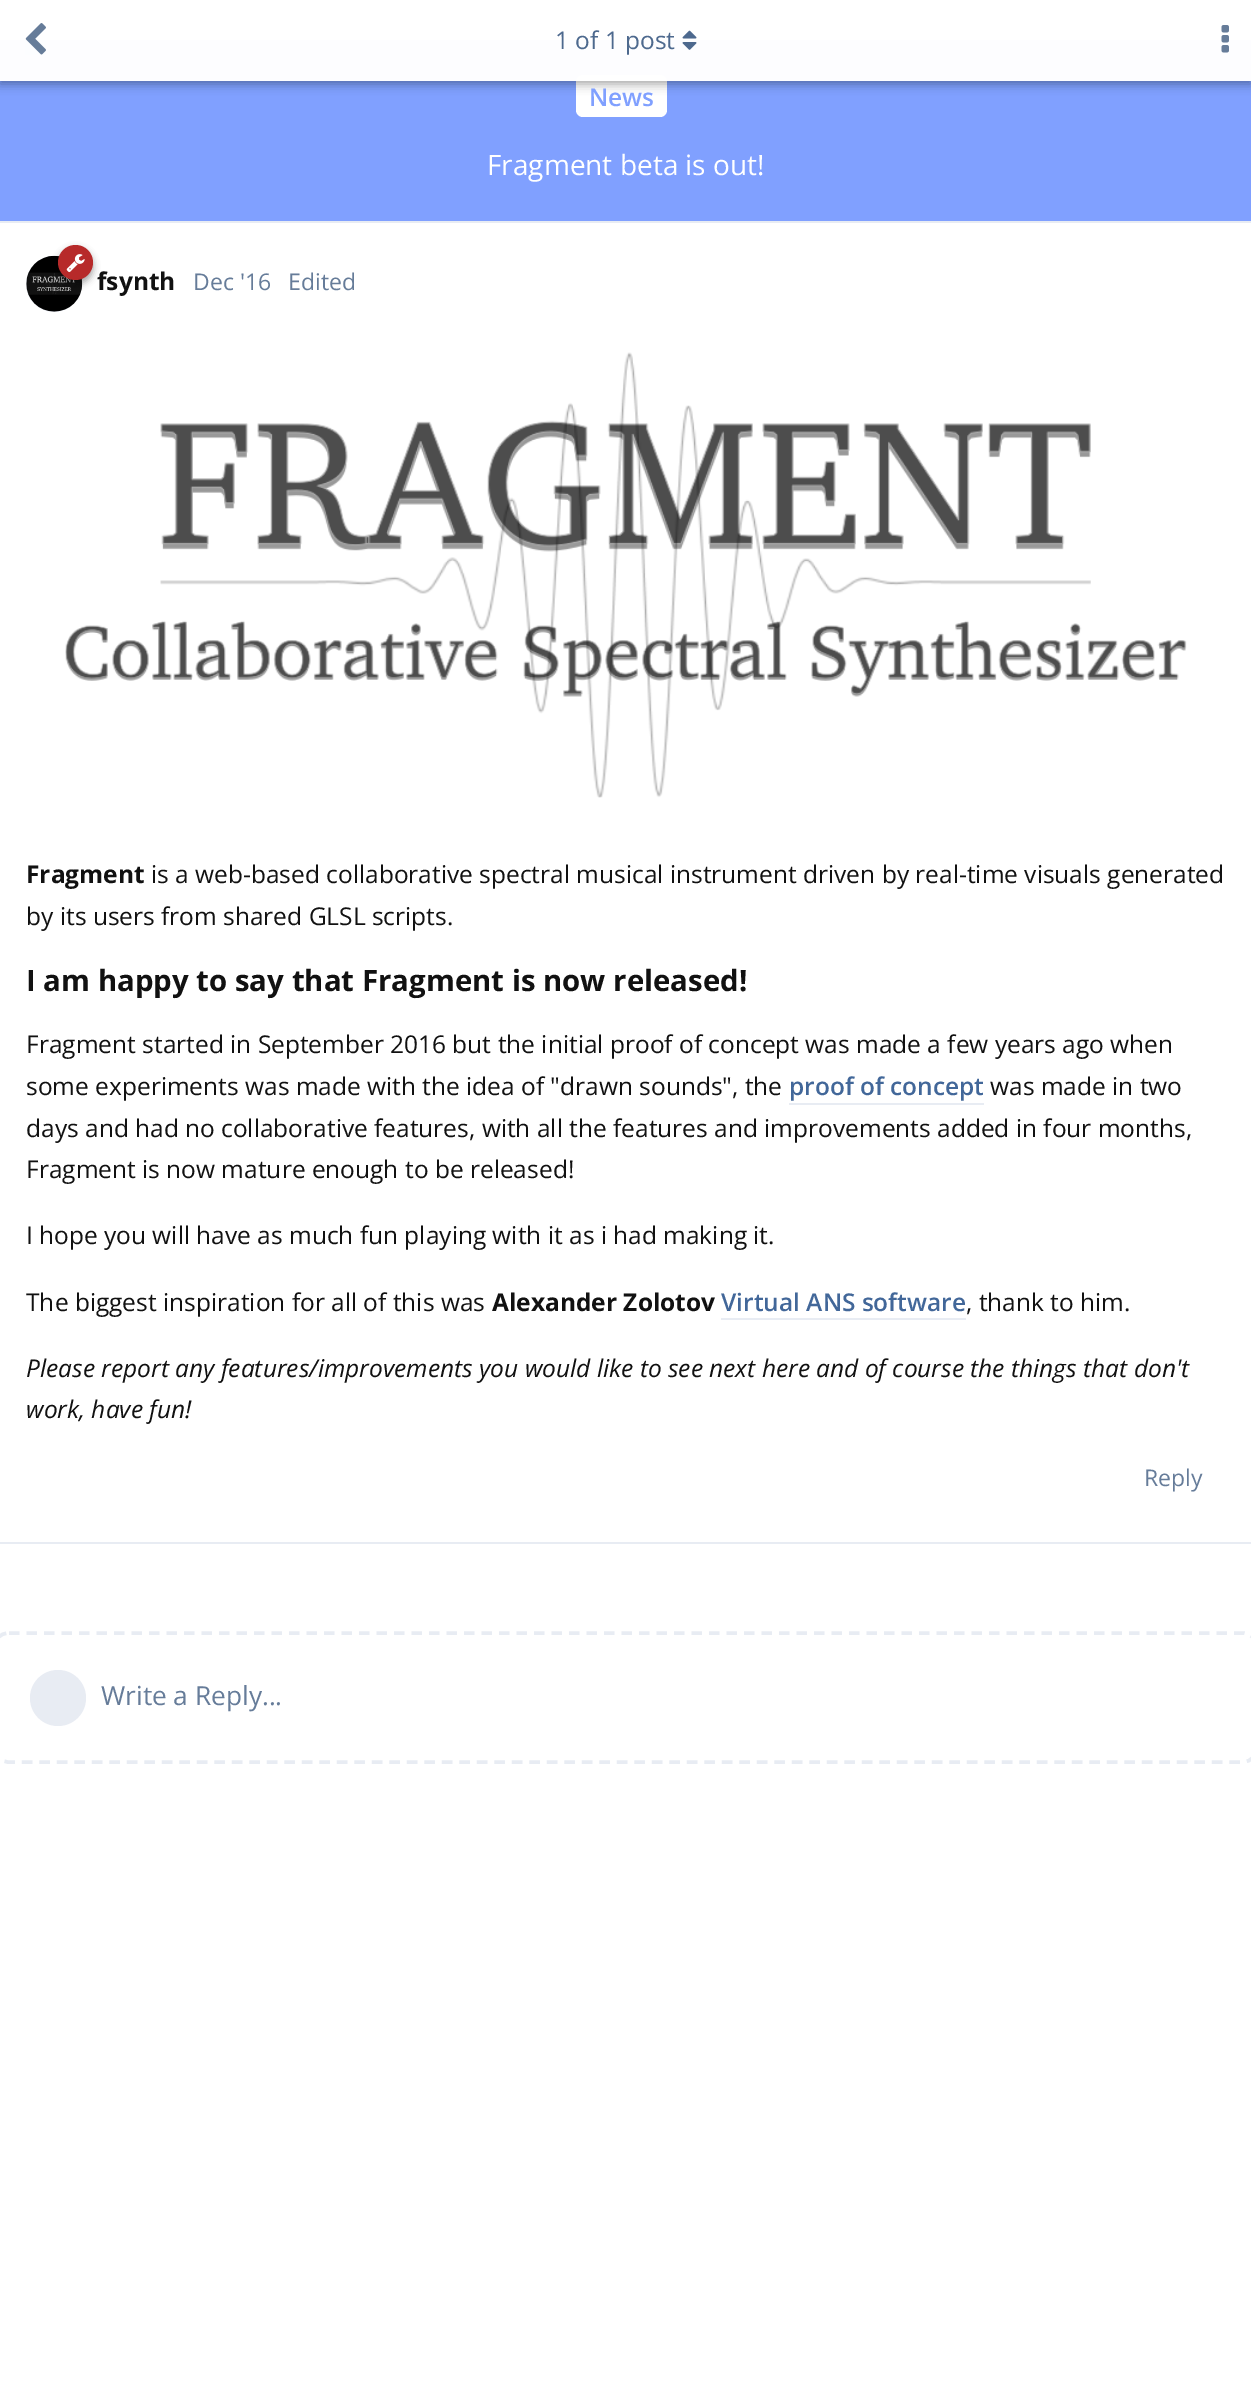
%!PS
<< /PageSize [1251 2397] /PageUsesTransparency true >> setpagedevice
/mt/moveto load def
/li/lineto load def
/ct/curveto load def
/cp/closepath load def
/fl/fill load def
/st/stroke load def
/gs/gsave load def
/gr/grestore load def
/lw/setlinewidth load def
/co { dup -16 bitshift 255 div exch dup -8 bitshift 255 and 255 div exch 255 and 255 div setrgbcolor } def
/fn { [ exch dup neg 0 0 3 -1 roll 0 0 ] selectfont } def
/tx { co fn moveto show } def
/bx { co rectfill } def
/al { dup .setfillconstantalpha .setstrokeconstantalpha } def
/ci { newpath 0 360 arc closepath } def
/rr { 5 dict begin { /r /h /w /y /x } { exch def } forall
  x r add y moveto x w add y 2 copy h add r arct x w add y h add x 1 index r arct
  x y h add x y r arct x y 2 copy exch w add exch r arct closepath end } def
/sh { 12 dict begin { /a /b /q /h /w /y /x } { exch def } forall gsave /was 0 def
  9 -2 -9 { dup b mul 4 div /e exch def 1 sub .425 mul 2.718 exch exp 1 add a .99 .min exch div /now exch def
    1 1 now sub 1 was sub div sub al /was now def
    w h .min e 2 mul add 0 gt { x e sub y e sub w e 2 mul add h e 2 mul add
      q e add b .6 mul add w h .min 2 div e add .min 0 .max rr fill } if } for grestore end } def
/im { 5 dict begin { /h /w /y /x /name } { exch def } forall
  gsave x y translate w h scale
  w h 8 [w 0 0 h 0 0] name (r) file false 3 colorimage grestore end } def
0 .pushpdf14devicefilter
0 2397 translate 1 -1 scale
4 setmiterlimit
0 0 1251 2397 16#FFFFFF bx
0 40 1251 181 16#80A0FF bx
16#FFFFFF co
576 75 91 42 7 rr fl
gs
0 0 mt 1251 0 li 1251 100 li 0 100 li cp 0 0 mt 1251 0 li 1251 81 li 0 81 li cp eoclip newpath
16#000000 co
0 4 1251 80 0 5 .35 sh
gr
0.98 al
0 40 1251 41 16#FFFFFF bx
1 al
(media/1.raw) 25 23 21 32 im
0 221 1251 2 16#E8ECF3 bx
(media/2.raw) 682 30 15 20 im
(media/3.raw) 1221 25 8 28 im
0 1542 1251 2 16#E8ECF3 bx
54 284 28 ci fl
(media/5.raw) 26 255 57 57 im
16#000000 co
58 249 35 35 17.5 3.5 .35 sh
16#B72A2A co
75.5 262.5 17.5 ci fl
(media/4.raw) 66 254 19 19 im
(media/6.raw) 65 352 1122 446 im
789 1103 195 2 16#E8ECF3 bx
721 1318 245 2 16#E8ECF3 bx
3.5 lw
[10.5 7] 0 setdash
9 1633 mt 1242.5 1633 li 1251 1633 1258 1640 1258 1648.5 ct 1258 1746.5 li 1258 1755 1251 1762 1242.5 1762 ct 9 1762 li 0 1762 -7 1755 -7 1746.5 ct -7 1648.5 li -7 1640 0 1633 9 1633 ct cp st
58 1698 28 ci fl
(1 of 1 post) 555 49 /OpenSans-Regular 24.5 16#4D698E tx
(fsynth) 97 290 /OpenSans-Bold 24.5 16#111111 tx
(Dec '16) 193 290 /OpenSans-Regular 23 16#667C99 tx
(Edited) 288 290 /OpenSans-Regular 23 16#667C99 tx
(Fragment) 26 883 /OpenSans-Bold 24.5 16#111111 tx
(is a web-based collaborative spectral musical instrument driven by real-time visuals generated) 151 883 /OpenSans-Regular 24.5 16#111111 tx
(by its users from shared GLSL scripts.) 26 925 /OpenSans-Regular 24.5 16#111111 tx
(I am happy to say that Fragment is now released!) 26 991 /OpenSans-Bold 29.4 16#111111 tx
(Fragment started in September 2016 but the initial proof of concept was made a few years ago when) 26 1053 /OpenSans-Regular 24.5 16#111111 tx
(some experiments was made with the idea of "drawn sounds", the) 26 1095 /OpenSans-Regular 24.5 16#111111 tx
(proof of concept) 789 1095 /OpenSans-SemiBold 24.5 16#426799 tx
(was made in two) 990 1095 /OpenSans-Regular 24.5 16#111111 tx
(days and had no collaborative features, with all the features and improvements added in four months,) 26 1137 /OpenSans-Regular 24.5 16#111111 tx
(Fragment is now mature enough to be released!) 26 1178 /OpenSans-Regular 24.5 16#111111 tx
(I hope you will have as much fun playing with it as i had making it.) 26 1244 /OpenSans-Regular 24.5 16#111111 tx
(The biggest inspiration for all of this was) 26 1311 /OpenSans-Regular 24.5 16#111111 tx
(Alexander Zolotov) 492 1311 /OpenSans-Bold 24.5 16#111111 tx
(Virtual ANS software) 721 1311 /OpenSans-SemiBold 24.5 16#426799 tx
(, thank to him.) 966 1311 /OpenSans-Regular 24.5 16#111111 tx
(Please report any features/improvements you would like to see next here and of course the things that don't) 26 1377 /OpenSans-Italic 24.5 16#111111 tx
(work, have fun!) 26 1418 /OpenSans-Italic 24.5 16#111111 tx
(Reply) 1144 1486 /OpenSans-Regular 23 16#667C99 tx
(Write a Reply...) 101 1705 /OpenSans-Regular 26.25 16#667C99 tx
(News) 589 106 /OpenSans-SemiBold 24.5 16#80A0FF tx
(Fragment beta is out!) 487 175 /OpenSans-Regular 28 16#FFFFFF tx
.poppdf14devicefilter showpage
